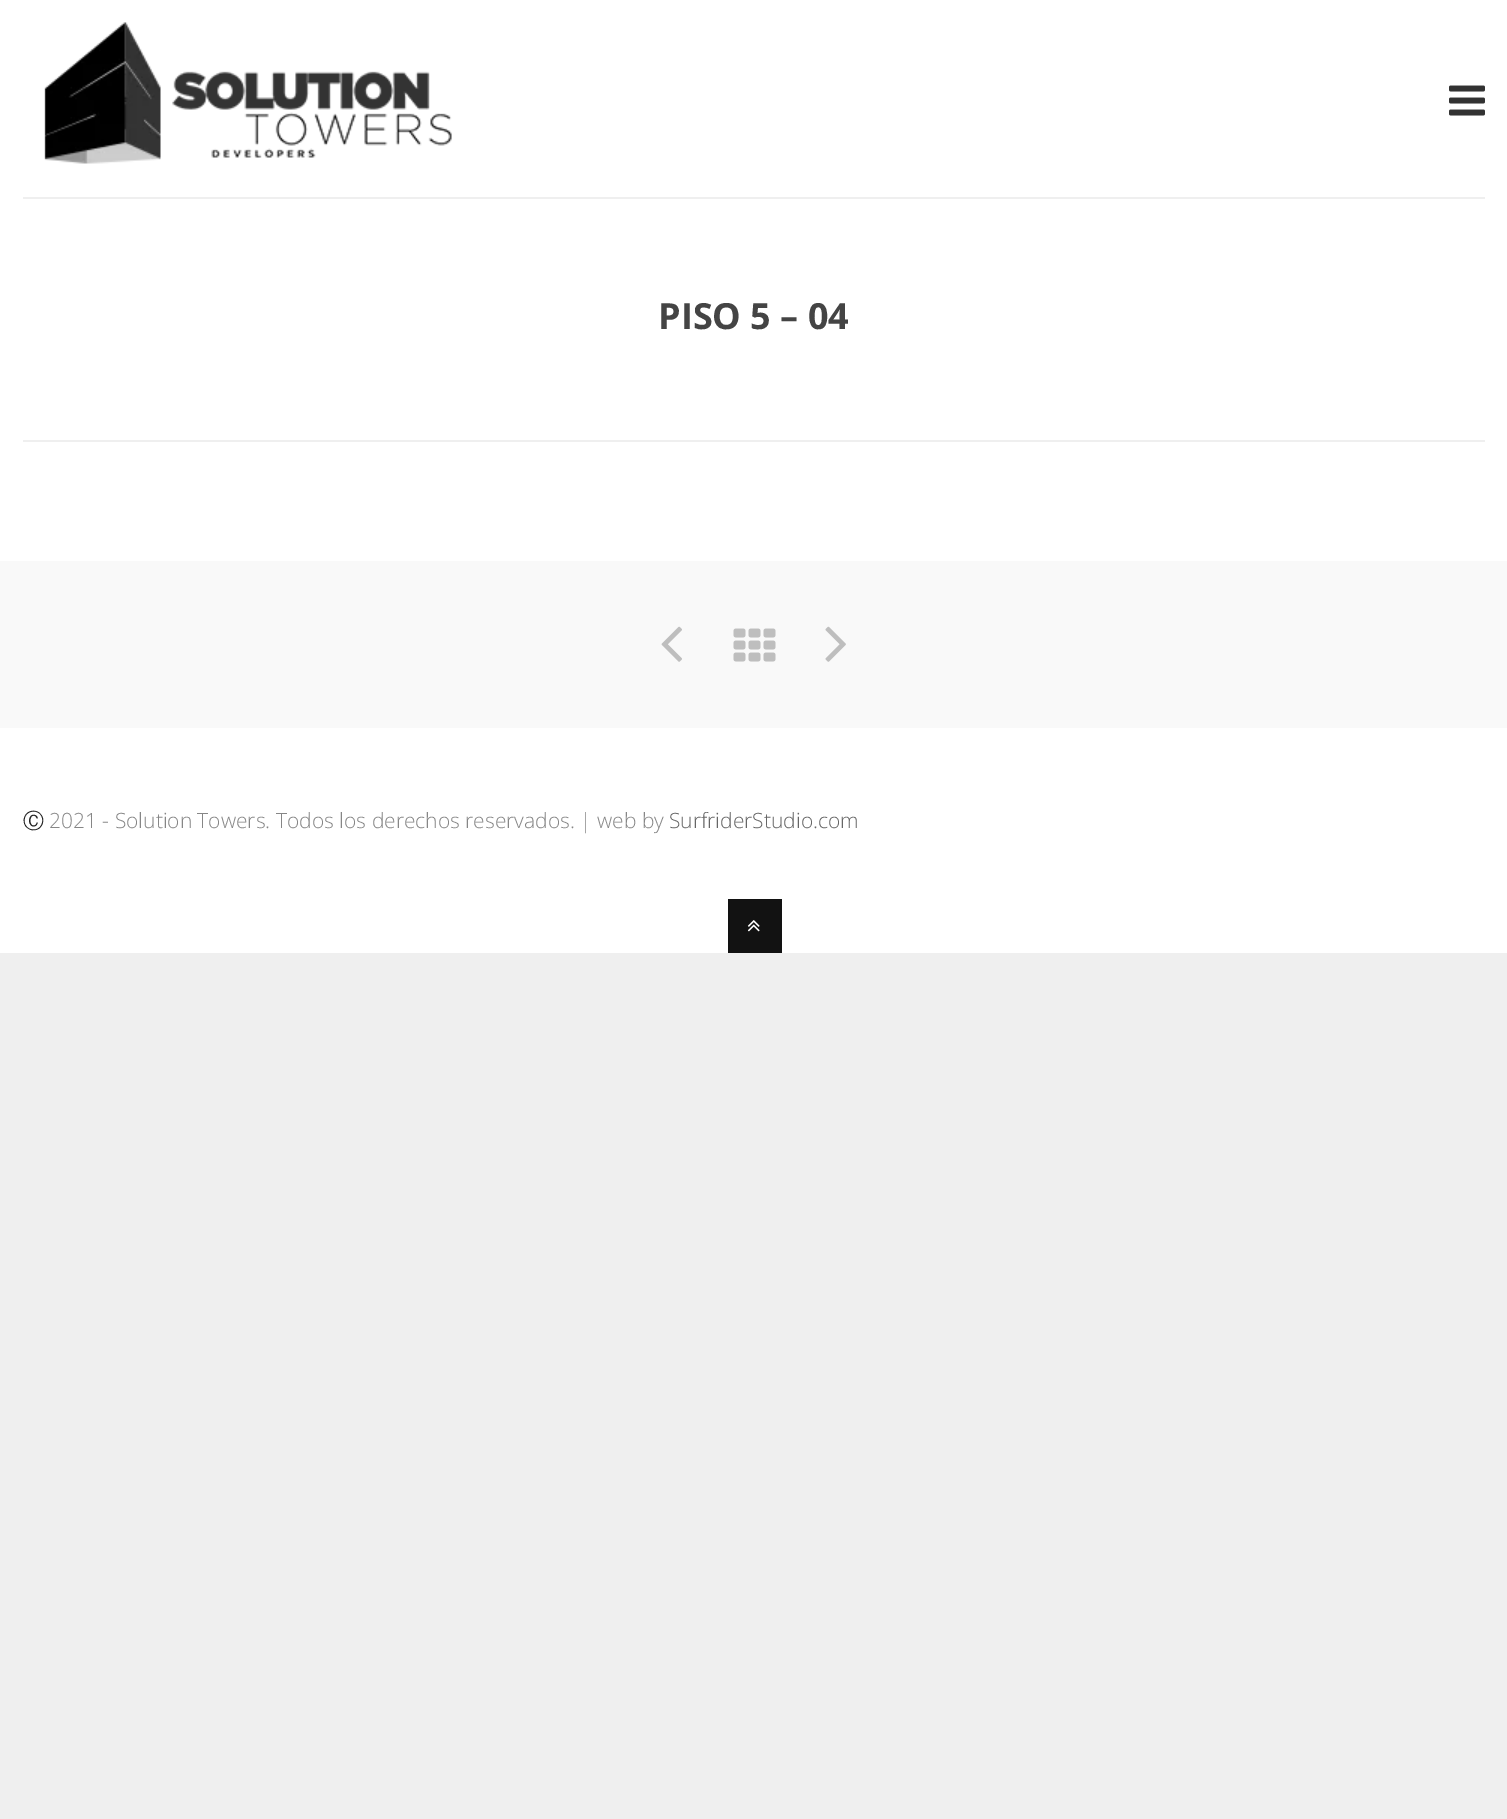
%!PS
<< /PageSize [1507 1819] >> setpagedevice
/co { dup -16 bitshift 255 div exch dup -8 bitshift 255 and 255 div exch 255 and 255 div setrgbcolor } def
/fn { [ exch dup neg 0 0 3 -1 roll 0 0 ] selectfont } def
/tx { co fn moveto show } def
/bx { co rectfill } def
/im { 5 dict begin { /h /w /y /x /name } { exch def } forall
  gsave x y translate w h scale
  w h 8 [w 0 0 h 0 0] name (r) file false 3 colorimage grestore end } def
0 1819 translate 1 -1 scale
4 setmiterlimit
0 0 1507 1819 16#EFEFEF bx
0 0 1507 953 16#FFFFFF bx
(media/1.raw) 44 22 408 142 im
(media/2.raw) 1449 85 36 31 im
23 197 1462 2 16#EFEFEF bx
23 440 1462 2 16#EFEFEF bx
0 561 1507 167 16#F9F9F9 bx
(media/3.raw) 661 626 21 36 im
(media/4.raw) 733 628 43 34 im
(media/5.raw) 825 626 21 36 im
728 899 54 54 16#121212 bx
(media/6.raw) 747 920 13 12 im
(PISO 5 – 04) 658 329 /OpenSans-Bold 36 16#444444 tx
(Ⓒ) 23 828 /WenQuanYiZenHei-Medium 21 16#222222 tx
(2021 - Solution Towers. Todos los derechos reservados. | web by) 49 828 /OpenSans-Light 21 16#868686 tx
(SurfriderStudio.com) 669 828 /OpenSans-Light 21 16#666666 tx
showpage
